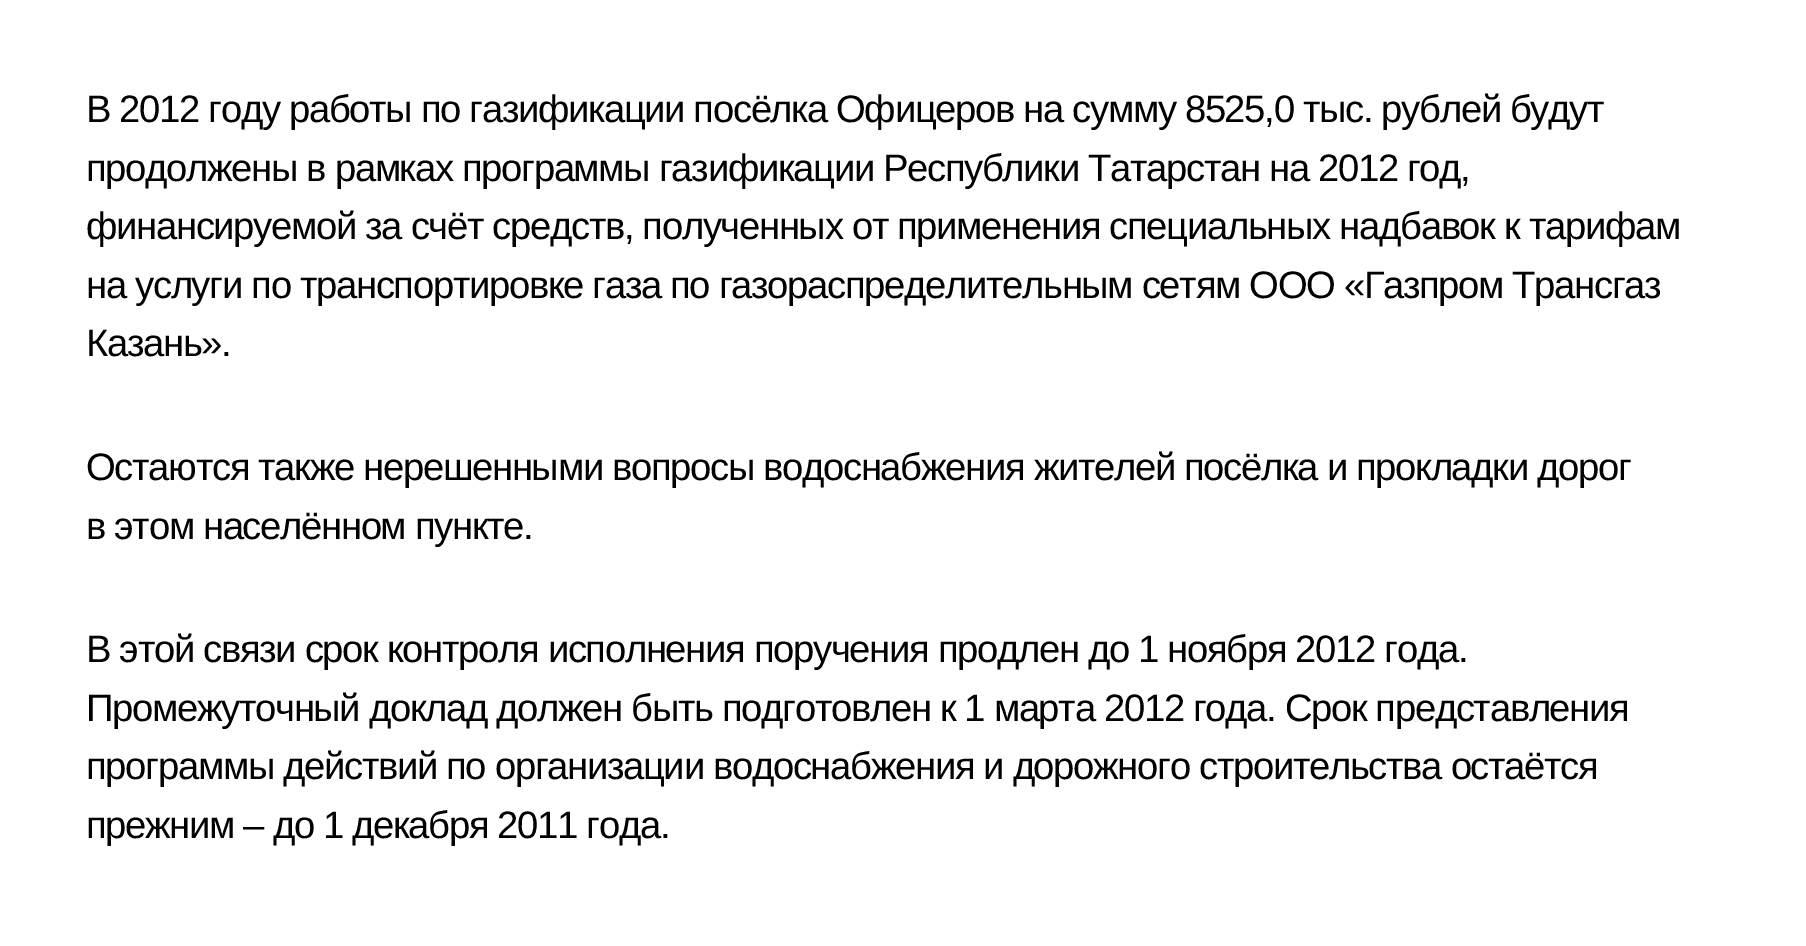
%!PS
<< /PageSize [1806 946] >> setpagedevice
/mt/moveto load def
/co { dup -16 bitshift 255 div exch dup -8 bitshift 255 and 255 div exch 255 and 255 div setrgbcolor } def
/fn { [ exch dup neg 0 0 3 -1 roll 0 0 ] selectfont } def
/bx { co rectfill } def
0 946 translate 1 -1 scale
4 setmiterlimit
0 0 1806 946 16#FFFFFF bx
/LiberationSans-Regular 38.25 fn
16#000000 co
86 122 mt -1.35 0 (В 2012 году работы по газификации посёлка Офицеров на сумму 8525,0 тыс. рублей будут) ashow
86 181 mt -1.35 0 (продолжены в рамках программы газификации Республики Татарстан на 2012 год,) ashow
86 239 mt -1.35 0 (финансируемой за счёт средств, полученных от применения специальных надбавок к тарифам) ashow
86 298 mt -1.35 0 (на услуги по транспортировке газа по газораспределительным сетям ООО «Газпром Трансгаз) ashow
86 356 mt -1.35 0 (Казань».) ashow
86 480 mt -1.35 0 (Остаются также нерешенными вопросы водоснабжения жителей посёлка и прокладки дорог) ashow
86 539 mt -1.35 0 (в этом населённом пункте.) ashow
86 662 mt -1.35 0 (В этой связи срок контроля исполнения поручения продлен до 1 ноября 2012 года.) ashow
86 721 mt -1.35 0 (Промежуточный доклад должен быть подготовлен к 1 марта 2012 года. Срок представления) ashow
86 779 mt -1.35 0 (программы действий по организации водоснабжения и дорожного строительства остаётся) ashow
86 838 mt -1.35 0 (прежним – до 1 декабря 2011 года.) ashow
showpage
